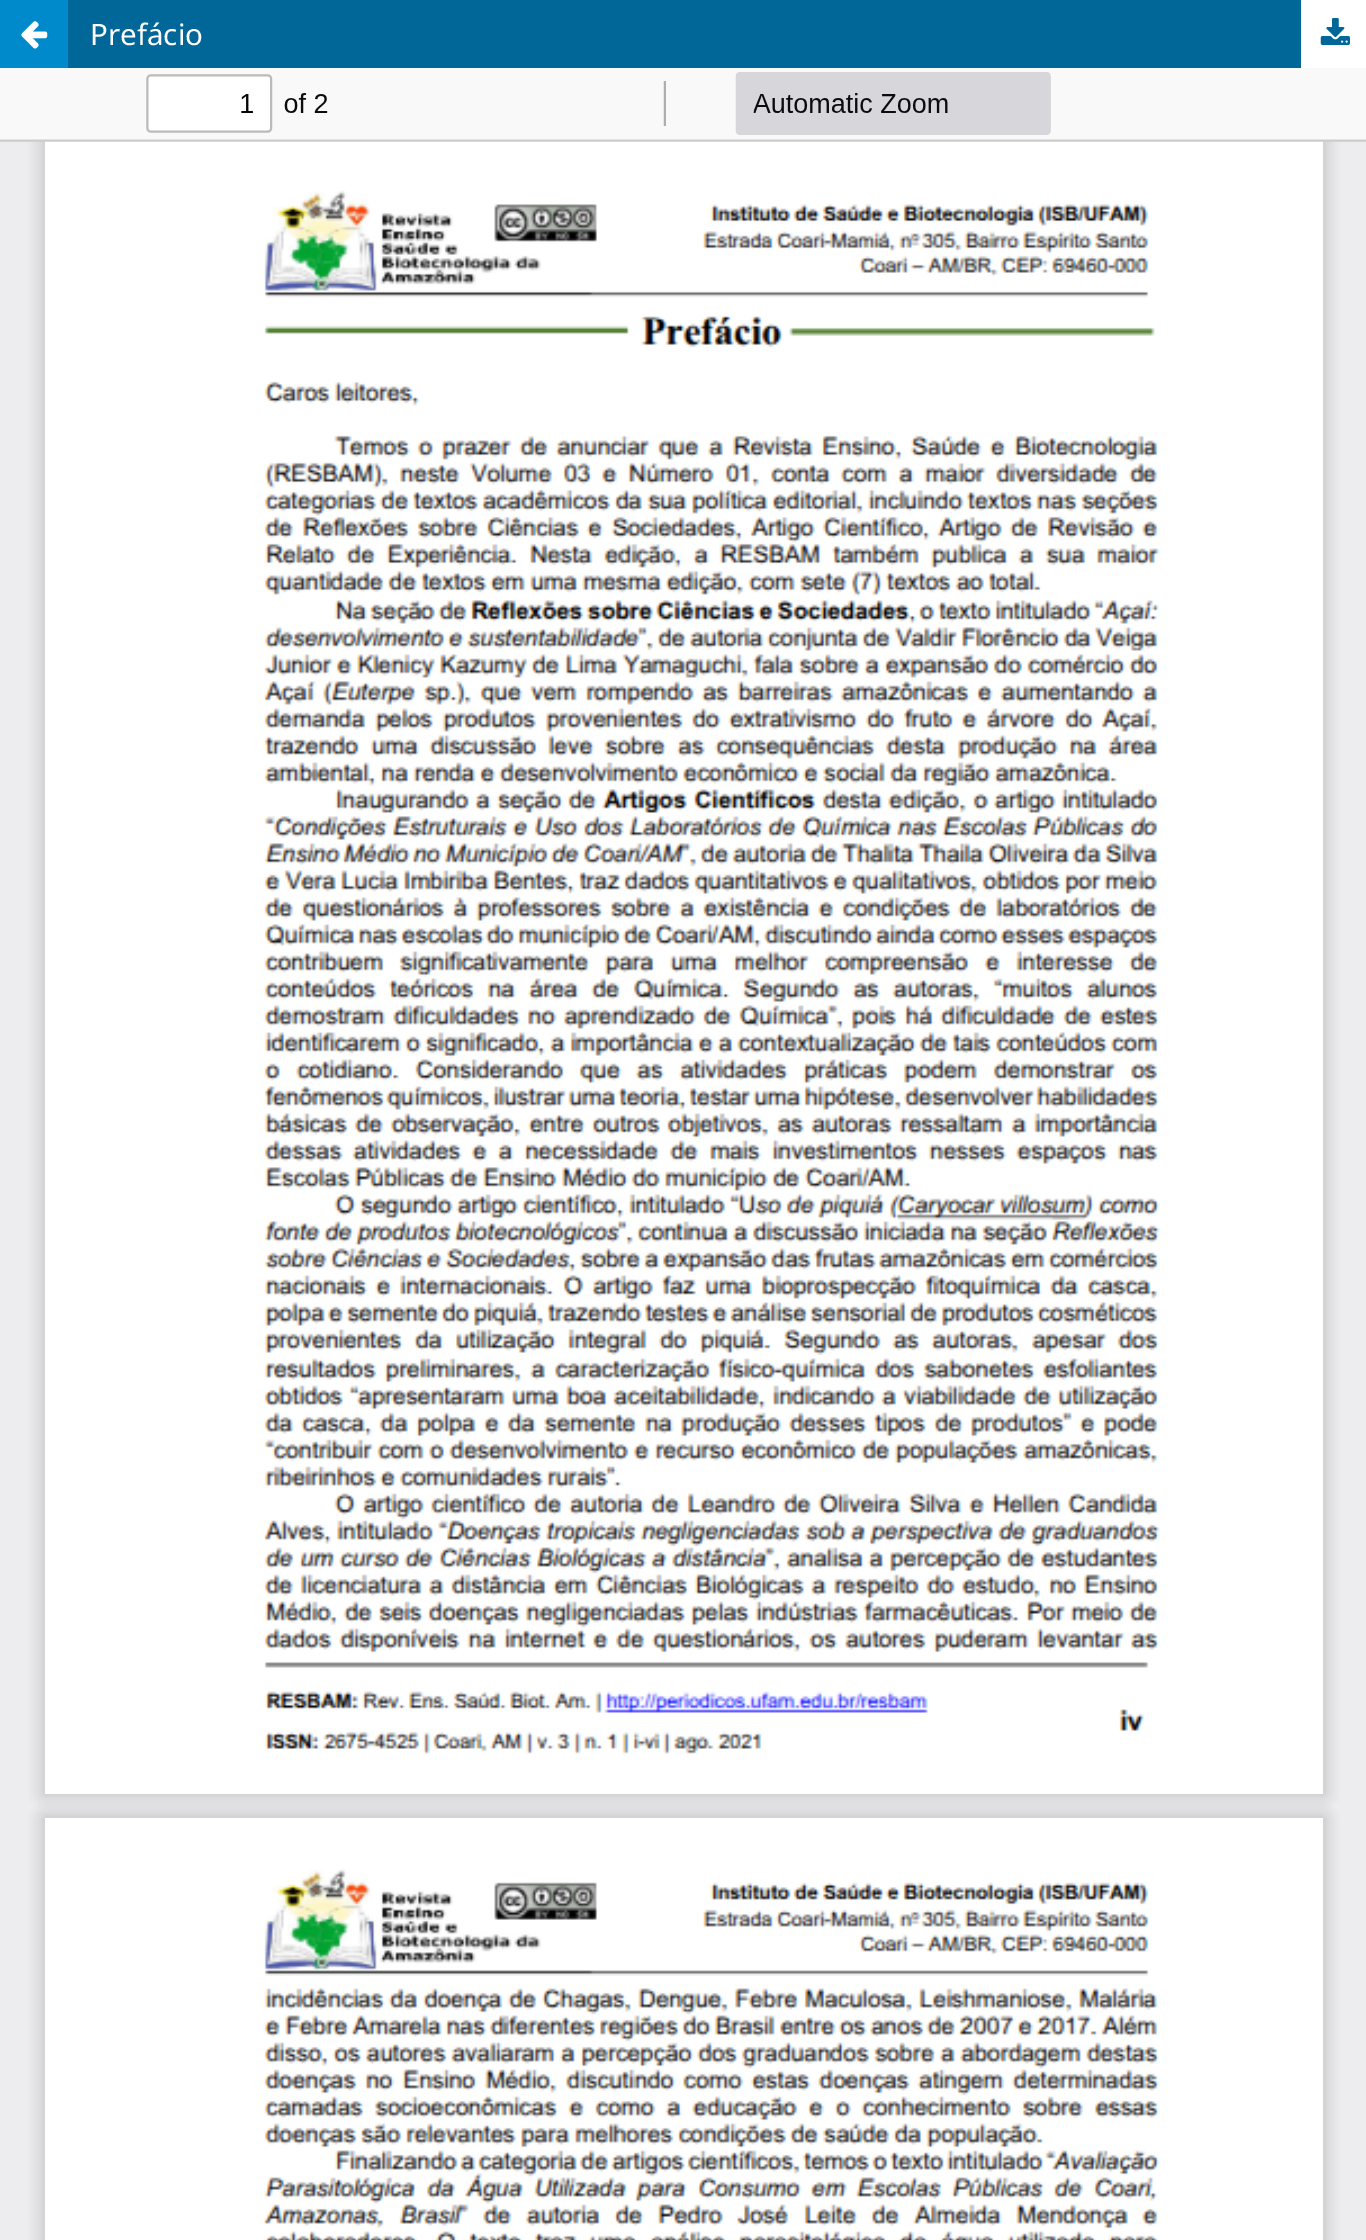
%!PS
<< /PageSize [1366 2240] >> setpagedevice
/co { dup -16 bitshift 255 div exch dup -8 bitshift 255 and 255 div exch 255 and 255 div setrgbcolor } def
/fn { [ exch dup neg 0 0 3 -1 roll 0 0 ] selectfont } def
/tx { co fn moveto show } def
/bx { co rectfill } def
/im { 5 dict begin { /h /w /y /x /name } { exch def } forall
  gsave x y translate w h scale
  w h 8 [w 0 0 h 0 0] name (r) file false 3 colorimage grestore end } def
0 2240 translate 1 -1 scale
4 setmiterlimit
0 0 1366 2240 16#FFFFFF bx
68 0 1233 68 16#006798 bx
0 0 68 68 16#008ACB bx
(media/1.raw) 21 21 27 28 im
(media/2.raw) 1320 18 30 27 im
(media/3.raw) 0 68 1366 2172 im
(Prefácio) 90 45 /NotoSans-Regular 29.5 16#FFFFFF tx
showpage
